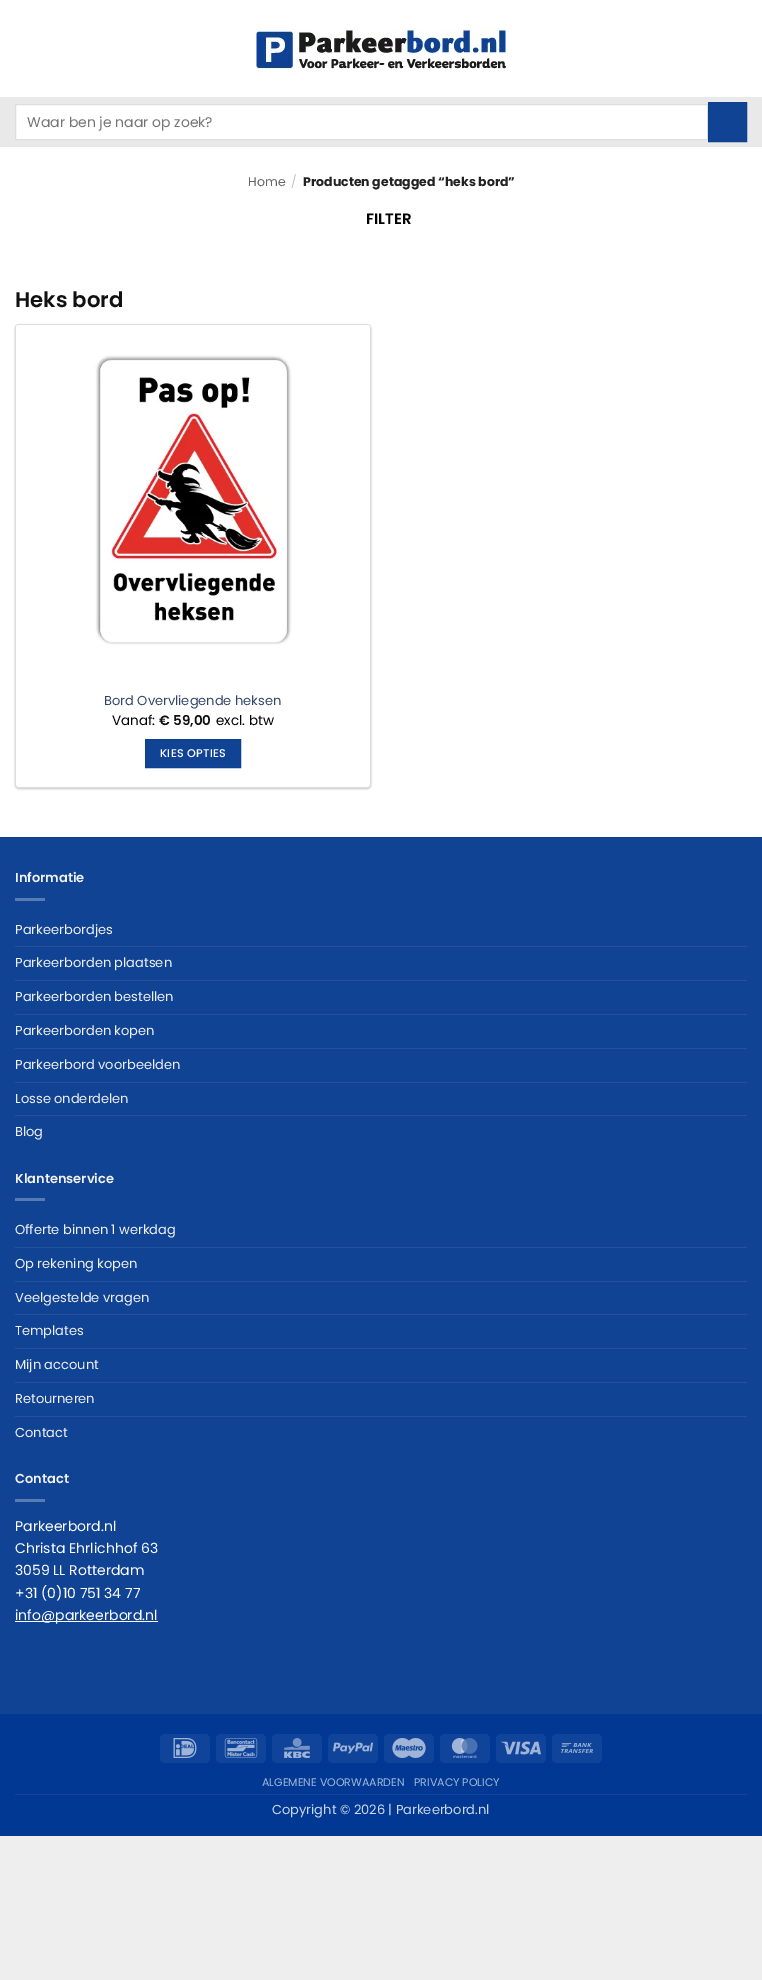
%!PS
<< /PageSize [762 1980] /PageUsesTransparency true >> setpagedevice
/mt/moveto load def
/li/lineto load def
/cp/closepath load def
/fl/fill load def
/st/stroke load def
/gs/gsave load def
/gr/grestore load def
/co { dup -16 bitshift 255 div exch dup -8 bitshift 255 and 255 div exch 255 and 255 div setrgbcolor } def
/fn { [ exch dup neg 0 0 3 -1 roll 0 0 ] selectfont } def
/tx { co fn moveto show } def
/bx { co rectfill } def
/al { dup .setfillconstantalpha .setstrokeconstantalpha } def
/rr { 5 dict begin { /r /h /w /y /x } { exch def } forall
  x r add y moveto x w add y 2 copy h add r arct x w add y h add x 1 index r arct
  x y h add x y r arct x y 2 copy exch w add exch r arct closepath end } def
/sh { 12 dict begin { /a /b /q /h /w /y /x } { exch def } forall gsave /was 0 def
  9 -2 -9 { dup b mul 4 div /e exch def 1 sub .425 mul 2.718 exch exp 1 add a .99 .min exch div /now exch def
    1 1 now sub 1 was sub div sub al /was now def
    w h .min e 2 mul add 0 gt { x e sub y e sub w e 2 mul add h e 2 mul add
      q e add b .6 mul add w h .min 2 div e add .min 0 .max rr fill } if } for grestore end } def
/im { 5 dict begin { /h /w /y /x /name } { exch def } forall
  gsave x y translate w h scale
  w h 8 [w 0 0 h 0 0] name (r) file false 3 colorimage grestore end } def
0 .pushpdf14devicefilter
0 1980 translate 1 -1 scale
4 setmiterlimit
0 0 762 1980 16#EEEEEE bx
0 0 762 837 16#FFFFFF bx
(media/1.raw) 256 29 250 40 im
0 97 762 50 16#E9E9E9 bx
16#FFFFFF co
15.5 104.5 mt 707.5 104.5 li 707.5 139.5 li 15.5 139.5 li cp gs fl gr
16#DDDDDD co
st
16#104394 co
708.5 102.5 mt 746.5 102.5 li 746.5 141.5 li 708.5 141.5 li cp gs fl gr
16#0F408D co
st
16#000000 co
15 325 356 464 4 1 .24 sh
16#DDDDDD co
15.5 324.5 355 463 3.5 rr st
16#FFFFFF co
16 325 354 462 3 rr fl
(media/2.raw) 16 325 354 320 im
16#104394 co
145.5 739.5 mt 240.5 739.5 li 240.5 767.5 li 145.5 767.5 li cp gs fl gr
16#0F408D co
st
0 838 762 876 16#104394 bx
0 837 762 1 16#0F408D bx
15 898 30 3 16#587BB4 bx
15 946 732 1 16#23529D bx
15 980 732 1 16#23529D bx
15 1014 732 1 16#23529D bx
15 1048 732 1 16#23529D bx
15 1082 732 1 16#23529D bx
15 1115 732 1 16#23529D bx
15 1198 30 3 16#587BB4 bx
15 1247 732 1 16#23529D bx
15 1281 732 1 16#23529D bx
15 1314 732 1 16#23529D bx
15 1348 732 1 16#23529D bx
15 1382 732 1 16#23529D bx
15 1416 732 1 16#23529D bx
15 1499 30 3 16#587BB4 bx
15 1621 143 1 16#FFFFFF bx
0 1714 762 122 16#003893 bx
16#0F449A co
160 1734 50 29 5 rr fl
(media/3.raw) 173 1738 24 20 im
216 1734 50 29 5 rr fl
(media/4.raw) 224 1738 34 20 im
272 1734 50 29 5 rr fl
(media/5.raw) 284 1738 26 20 im
328 1734 50 29 5 rr fl
(media/6.raw) 333 1742 40 12 im
384 1734 50 29 5 rr fl
(media/7.raw) 392 1738 34 20 im
440 1734 50 29 5 rr fl
(media/8.raw) 451 1738 27 20 im
496 1734 50 29 5 rr fl
(media/9.raw) 501 1741 40 14 im
552 1734 50 29 5 rr fl
(media/10.raw) 561 1743 32 10 im
15 1794 732 1 16#10459A bx
(Waar ben je naar op zoek?) 27 127 /Poppins-Regular 14 16#757575 tx
(Home) 248 186 /Poppins-Regular 12.5 16#666666 tx
(/) 291 186 /Poppins-Light 12.5 16#B2B2B2 tx
(Producten getagged “heks bord”) 303 186 /Poppins-Bold 12.5 16#222222 tx
(FILTER) 366 224 /Poppins-SemiBold 15 16#000000 tx
(Heks bord) 15 307 /Poppins-SemiBold 21.25 16#111111 tx
(Bord Overvliegende heksen) 104 705 /Poppins-Regular 13 16#33466A tx
(Vanaf:) 112 725 /Poppins-Regular 13.5 16#000000 tx
(€ 59,00) 159 725 /Poppins-SemiBold 13.5 16#111111 tx
(excl. btw) 216 725 /Poppins-Regular 13.5 16#000000 tx
/Poppins-Medium 11.25 fn
16#FFFFFF co
160 757 mt .25 0 (KIES OPTIES) ashow
(Informatie) 15 882 /Poppins-SemiBold 13 16#F1F1F1 tx
(Parkeerbordjes) 15 934 /Poppins-Regular 13 16#F1F1F1 tx
(Parkeerborden plaatsen) 15 967 /Poppins-Regular 13 16#F1F1F1 tx
(Parkeerborden bestellen) 15 1001 /Poppins-Regular 13 16#F1F1F1 tx
(Parkeerborden kopen) 15 1035 /Poppins-Regular 13 16#F1F1F1 tx
(Parkeerbord voorbeelden) 15 1069 /Poppins-Regular 13 16#F1F1F1 tx
(Losse onderdelen) 15 1103 /Poppins-Regular 13 16#F1F1F1 tx
(Blog) 15 1136 /Poppins-Regular 13 16#F1F1F1 tx
(Klantenservice) 15 1183 /Poppins-SemiBold 13 16#F1F1F1 tx
(Offerte binnen 1 werkdag) 15 1234 /Poppins-Regular 13 16#F1F1F1 tx
(Op rekening kopen) 15 1268 /Poppins-Regular 13 16#F1F1F1 tx
(Veelgestelde vragen) 15 1302 /Poppins-Regular 13 16#F1F1F1 tx
(Templates) 15 1335 /Poppins-Regular 13 16#F1F1F1 tx
(Mijn account) 15 1369 /Poppins-Regular 13 16#F1F1F1 tx
(Retourneren) 15 1403 /Poppins-Regular 13 16#F1F1F1 tx
(Contact) 15 1437 /Poppins-Regular 13 16#F1F1F1 tx
(Contact) 15 1483 /Poppins-SemiBold 13 16#F1F1F1 tx
(Parkeerbord.nl) 15 1531 /Poppins-Regular 14 16#FFFFFF tx
(Christa Ehrlichhof 63) 15 1553 /Poppins-Regular 14 16#FFFFFF tx
(3059 LL Rotterdam) 15 1575 /Poppins-Regular 14 16#FFFFFF tx
(+31 \(0\)10 751 34 77) 15 1598 /Poppins-Regular 14 16#FFFFFF tx
(info@parkeerbord.nl) 15 1620 /Poppins-Regular 14 16#FFFFFF tx
(ALGEMENE VOORWAARDEN) 262 1786 /Poppins-Regular 11 16#A3B7D8 tx
(PRIVACY POLICY) 414 1786 /Poppins-Regular 11 16#A3B7D8 tx
(Copyright © 2026 | Parkeerbord.nl) 272 1814 /Poppins-Regular 13 16#CCD7E9 tx
.poppdf14devicefilter showpage
